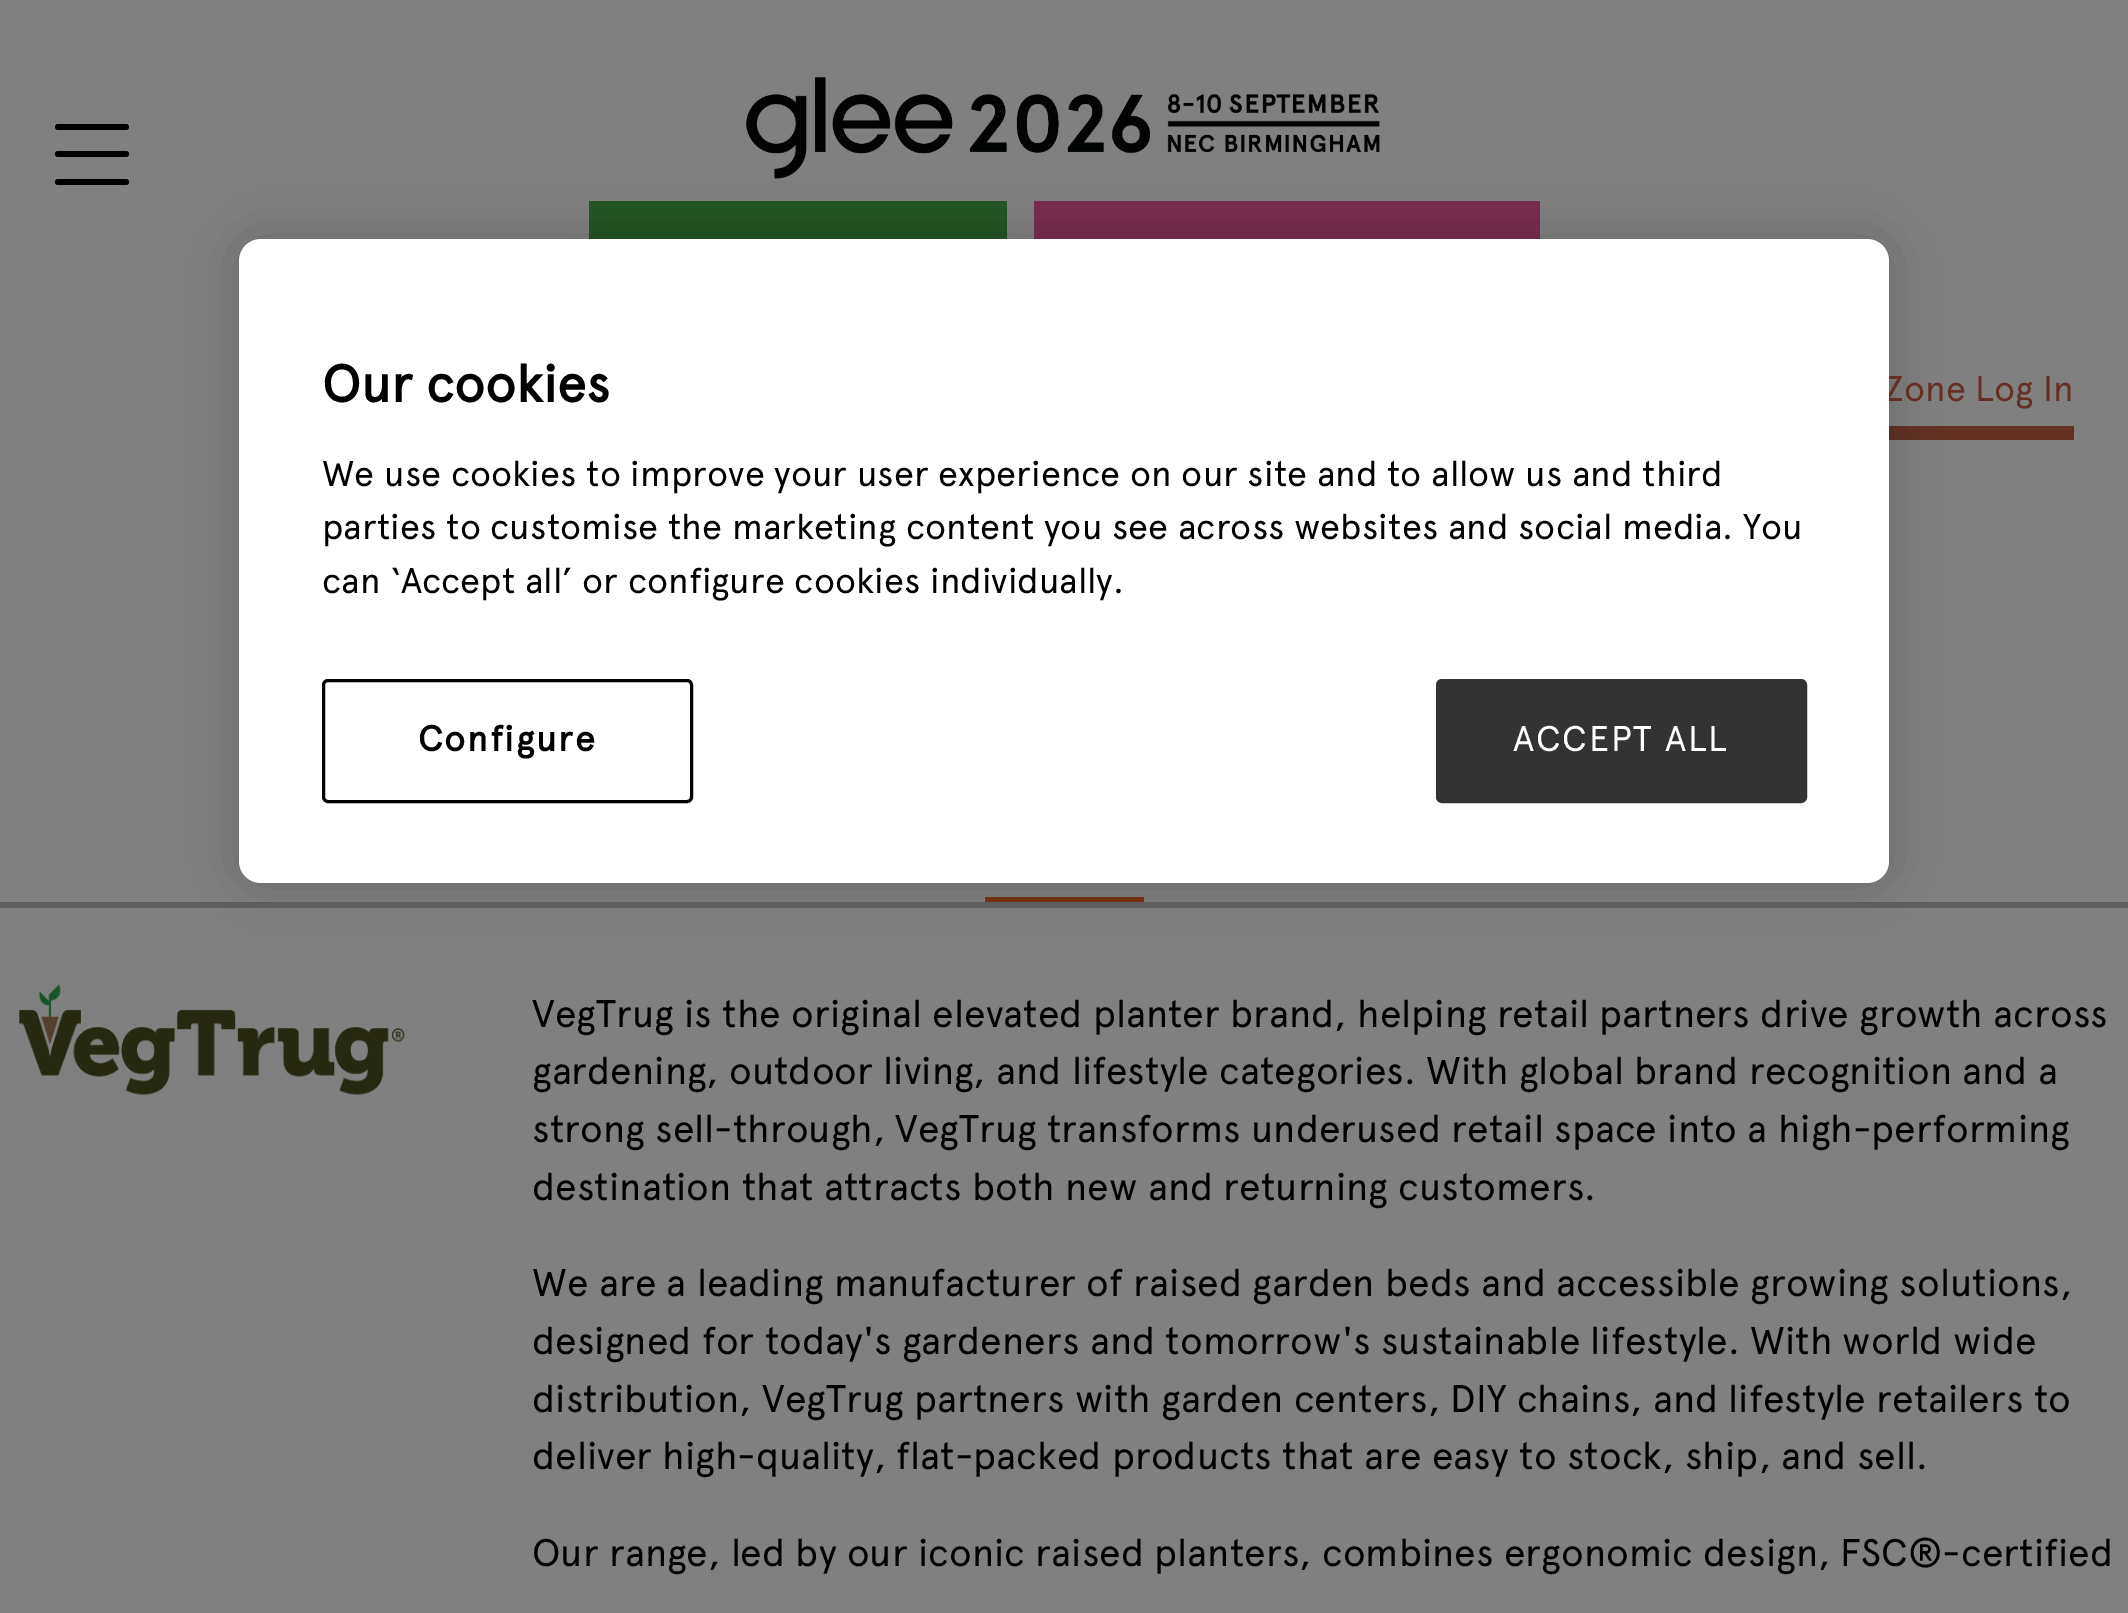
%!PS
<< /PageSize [2128 1613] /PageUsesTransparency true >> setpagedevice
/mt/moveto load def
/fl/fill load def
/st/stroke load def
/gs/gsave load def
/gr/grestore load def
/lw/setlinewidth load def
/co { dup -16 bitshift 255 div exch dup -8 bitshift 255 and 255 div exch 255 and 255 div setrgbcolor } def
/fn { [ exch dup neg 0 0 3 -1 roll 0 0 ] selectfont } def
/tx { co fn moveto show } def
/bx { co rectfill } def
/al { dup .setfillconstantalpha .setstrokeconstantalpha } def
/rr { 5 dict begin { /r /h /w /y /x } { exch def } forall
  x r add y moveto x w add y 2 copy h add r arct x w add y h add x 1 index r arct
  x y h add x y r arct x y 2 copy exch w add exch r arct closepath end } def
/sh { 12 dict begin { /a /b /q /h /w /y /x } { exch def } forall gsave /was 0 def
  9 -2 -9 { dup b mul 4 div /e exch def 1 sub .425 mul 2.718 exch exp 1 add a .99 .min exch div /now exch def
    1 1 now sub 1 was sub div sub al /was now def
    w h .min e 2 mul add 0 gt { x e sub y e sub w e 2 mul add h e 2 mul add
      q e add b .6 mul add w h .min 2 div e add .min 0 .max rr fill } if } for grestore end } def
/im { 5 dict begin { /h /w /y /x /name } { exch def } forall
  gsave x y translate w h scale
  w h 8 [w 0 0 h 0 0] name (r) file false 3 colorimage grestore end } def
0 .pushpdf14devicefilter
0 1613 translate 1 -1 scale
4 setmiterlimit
0 0 2128 1613 16#808080 bx
(media/1.raw) 746 77 634 102 im
589 201 418 38 16#225624 bx
1034 201 506 38 16#782C4F bx
1889 426 185 14 16#643024 bx
0 902 2128 6 16#606060 bx
985 897 159 5 16#793011 bx
16#000000 co
239 239 1650 644 22 25 .2 sh
55 151 74 6 3 rr fl
55 124 74 6 3 rr fl
55 179 74 6 3 rr fl
(media/2.raw) 19 984 386 111 im
(Zone Log In) 1884 401 /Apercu-Regular 35.75 16#643024 tx
16#FFFFFF co
239 239 1650 644 22 rr fl
16#333333 co
1437.5 680.5 368 121 4.5 rr gs fl gr
3 lw
st
16#FFFFFF co
1513 751 mt 1.75 0 (ACCEPT ALL) ashow
16#000000 co
323.5 680.5 368 121 4.5 rr st
/Apercu-Bold 35.75 fn
418 751 mt 1.75 0 (Configure) ashow
(can ‘Accept all’ or configure cookies individually.) 322 593 /Apercu-Regular 35.75 16#000000 tx
(parties to customise the marketing content you see across websites and social media. You) 322 539 /Apercu-Regular 35.75 16#000000 tx
(We use cookies to improve your user experience on our site and to allow us and third) 322 486 /Apercu-Regular 35.75 16#000000 tx
(Our cookies) 322 402 /Apercu-Bold 52.25 16#000000 tx
(VegTrug is the original elevated planter brand, helping retail partners drive growth across) 532 1027 /Apercu-Regular 38.5 16#000000 tx
(gardening, outdoor living, and lifestyle categories. With global brand recognition and a) 532 1084 /Apercu-Regular 38.5 16#000000 tx
(strong sell-through, VegTrug transforms underused retail space into a high-performing) 532 1142 /Apercu-Regular 38.5 16#000000 tx
(destination that attracts both new and returning customers.) 532 1200 /Apercu-Regular 38.5 16#000000 tx
(We are a leading manufacturer of raised garden beds and accessible growing solutions,) 532 1296 /Apercu-Regular 38.5 16#000000 tx
(designed for today's gardeners and tomorrow's sustainable lifestyle. With world wide) 532 1354 /Apercu-Regular 38.5 16#000000 tx
(distribution, VegTrug partners with garden centers, DIY chains, and lifestyle retailers to) 532 1412 /Apercu-Regular 38.5 16#000000 tx
(deliver high-quality, flat-packed products that are easy to stock, ship, and sell.) 532 1469 /Apercu-Regular 38.5 16#000000 tx
(Our range, led by our iconic raised planters, combines ergonomic design, FSC®-certified) 532 1566 /Apercu-Regular 38.5 16#000000 tx
.poppdf14devicefilter showpage
